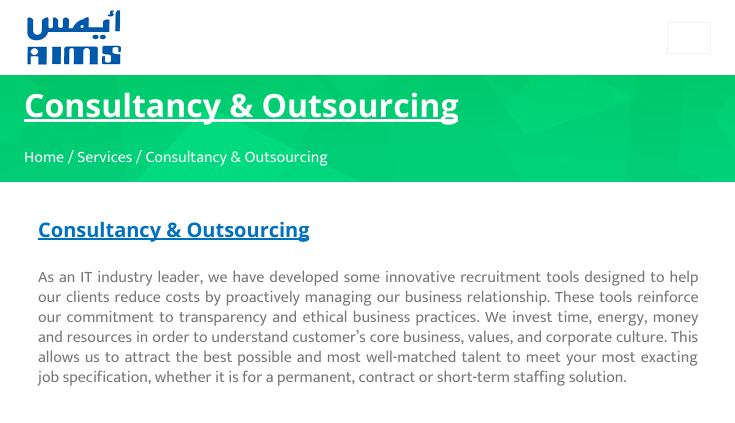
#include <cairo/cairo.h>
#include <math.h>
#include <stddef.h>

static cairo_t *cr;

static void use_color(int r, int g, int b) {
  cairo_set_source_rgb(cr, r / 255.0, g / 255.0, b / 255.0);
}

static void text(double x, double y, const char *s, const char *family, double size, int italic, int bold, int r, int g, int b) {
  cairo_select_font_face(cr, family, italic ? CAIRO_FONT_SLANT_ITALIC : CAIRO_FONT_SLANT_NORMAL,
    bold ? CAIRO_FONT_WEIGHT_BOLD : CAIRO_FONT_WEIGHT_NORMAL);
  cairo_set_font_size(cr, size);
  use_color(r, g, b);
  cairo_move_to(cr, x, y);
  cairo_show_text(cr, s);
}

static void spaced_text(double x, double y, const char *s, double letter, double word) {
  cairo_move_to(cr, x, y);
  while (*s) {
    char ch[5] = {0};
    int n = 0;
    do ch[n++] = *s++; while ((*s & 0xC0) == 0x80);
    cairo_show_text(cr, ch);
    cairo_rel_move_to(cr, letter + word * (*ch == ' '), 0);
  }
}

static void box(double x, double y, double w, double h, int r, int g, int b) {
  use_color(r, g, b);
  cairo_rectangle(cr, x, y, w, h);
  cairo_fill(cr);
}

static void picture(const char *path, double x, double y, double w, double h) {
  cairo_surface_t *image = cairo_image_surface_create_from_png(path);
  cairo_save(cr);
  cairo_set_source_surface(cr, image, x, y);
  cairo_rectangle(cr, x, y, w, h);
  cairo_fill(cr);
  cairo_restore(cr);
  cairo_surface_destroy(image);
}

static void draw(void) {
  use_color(255, 255, 255);
  cairo_paint(cr);
  picture("img_01.png", 27, 10, 94, 55);
  cairo_rectangle(cr, 667.5, 22.5, 43, 31);
  use_color(242, 242, 242);
  cairo_set_line_width(cr, 1);
  cairo_stroke(cr);
  picture("img_02.png", 0, 75, 735, 107);
  box(24, 119, 434, 3, 255, 255, 255);
  box(38, 238, 271, 2, 0, 112, 192);
  text(24, 117, "Consultancy & Outsourcing", "Open Sans", 32, 0, 1, 255, 255, 255);
  text(24, 162, "Home / Services / Consultancy & Outsourcing", "Mukta Vaani", 16, 0, 0, 255, 255, 255);
  text(38, 237, "Consultancy & Outsourcing", "Open Sans", 20, 0, 1, 0, 112, 192);
  cairo_select_font_face(cr, "Mukta Vaani", CAIRO_FONT_SLANT_NORMAL, CAIRO_FONT_WEIGHT_NORMAL);
  cairo_set_font_size(cr, 16);
  use_color(119, 119, 119);
  spaced_text(38, 282, "As an IT industry leader, we have developed some innovative recruitment tools designed to help", 0, 1.4);
  spaced_text(38, 302, "our clients reduce costs by proactively managing our business relationship. These tools reinforce", 0, 1.25);
  spaced_text(38, 322, "our commitment to transparency and ethical business practices. We invest time, energy, money", 0, 1.75);
  spaced_text(38, 342, "and resources in order to understand customer’s core business, values, and corporate culture. This", 0, 0.25);
  spaced_text(38, 362, "allows us to attract the best possible and most well-matched talent to meet your most exacting", 0, 1.5);
  text(38, 382, "job specification, whether it is for a permanent, contract or short-term staffing solution.", "Mukta Vaani", 16, 0, 0, 119, 119, 119);
}

int main(void) {
  cairo_surface_t *surface = cairo_image_surface_create(CAIRO_FORMAT_RGB24, 735, 423);
  cr = cairo_create(surface);
  cairo_font_options_t *options = cairo_font_options_create();
  cairo_font_options_set_hint_metrics(options, CAIRO_HINT_METRICS_OFF);
  cairo_font_options_set_hint_style(options, CAIRO_HINT_STYLE_NONE);
  cairo_set_font_options(cr, options);
  cairo_set_miter_limit(cr, 4);
  draw();
  cairo_surface_write_to_png(surface, "out.png");
  cairo_font_options_destroy(options);
  cairo_destroy(cr);
  cairo_surface_destroy(surface);
  return 0;
}
